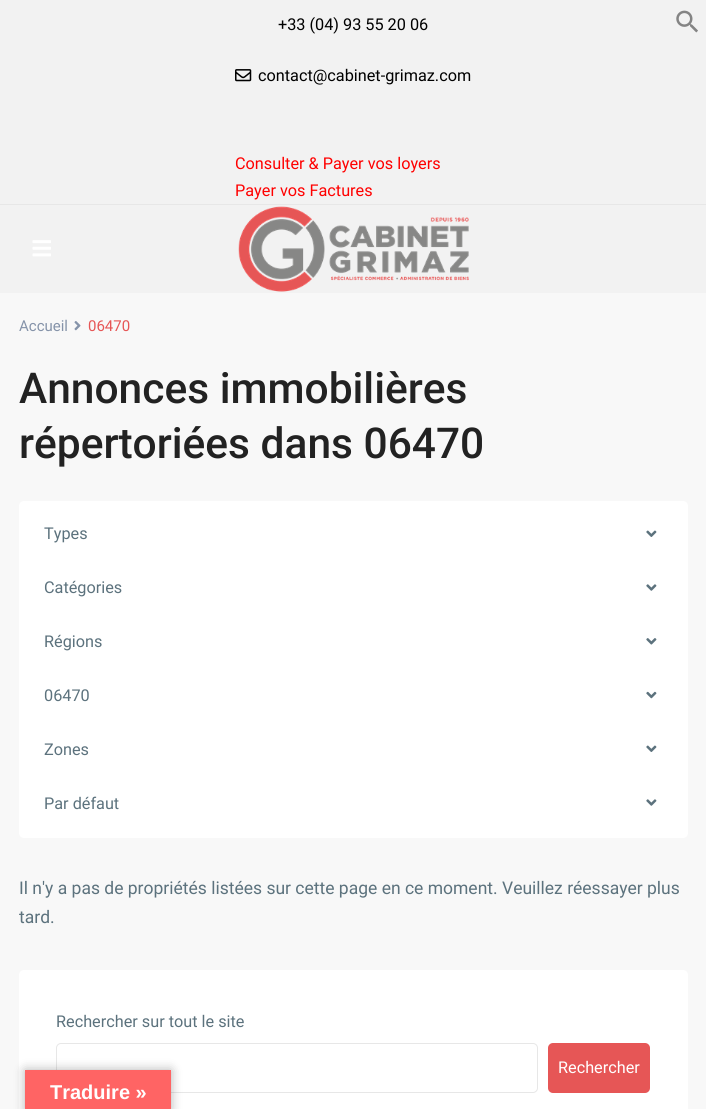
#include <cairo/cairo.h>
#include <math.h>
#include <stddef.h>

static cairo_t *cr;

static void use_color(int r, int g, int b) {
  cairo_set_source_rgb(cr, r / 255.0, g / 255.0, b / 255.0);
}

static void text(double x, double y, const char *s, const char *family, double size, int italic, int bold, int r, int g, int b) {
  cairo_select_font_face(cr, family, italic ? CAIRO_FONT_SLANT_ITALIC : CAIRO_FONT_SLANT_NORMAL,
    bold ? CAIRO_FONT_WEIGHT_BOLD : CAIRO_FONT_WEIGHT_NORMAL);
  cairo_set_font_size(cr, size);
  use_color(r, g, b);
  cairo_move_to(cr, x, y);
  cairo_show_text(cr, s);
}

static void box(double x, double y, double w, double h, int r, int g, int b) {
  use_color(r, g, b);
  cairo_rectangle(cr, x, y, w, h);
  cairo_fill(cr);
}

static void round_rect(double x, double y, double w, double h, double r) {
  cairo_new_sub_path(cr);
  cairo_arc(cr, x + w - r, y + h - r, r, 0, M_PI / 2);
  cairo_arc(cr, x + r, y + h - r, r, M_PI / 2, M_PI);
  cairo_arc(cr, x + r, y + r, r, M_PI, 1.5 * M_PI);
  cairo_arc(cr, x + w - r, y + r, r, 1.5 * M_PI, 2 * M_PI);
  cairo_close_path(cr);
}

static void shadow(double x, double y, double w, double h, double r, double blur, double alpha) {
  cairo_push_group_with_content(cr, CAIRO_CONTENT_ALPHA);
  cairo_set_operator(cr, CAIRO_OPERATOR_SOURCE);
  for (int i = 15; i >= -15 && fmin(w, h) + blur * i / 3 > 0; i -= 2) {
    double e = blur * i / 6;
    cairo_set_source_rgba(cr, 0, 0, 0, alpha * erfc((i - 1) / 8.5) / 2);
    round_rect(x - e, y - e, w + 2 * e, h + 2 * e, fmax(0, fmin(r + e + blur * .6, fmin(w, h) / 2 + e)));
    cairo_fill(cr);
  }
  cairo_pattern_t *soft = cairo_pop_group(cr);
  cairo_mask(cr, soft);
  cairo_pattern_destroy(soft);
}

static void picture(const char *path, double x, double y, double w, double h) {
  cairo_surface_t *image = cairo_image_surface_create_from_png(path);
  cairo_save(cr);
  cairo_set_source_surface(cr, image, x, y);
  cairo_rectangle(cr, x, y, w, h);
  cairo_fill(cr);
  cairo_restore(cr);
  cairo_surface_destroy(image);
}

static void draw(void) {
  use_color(248, 248, 248);
  cairo_paint(cr);
  box(0, 0, 706, 204, 242, 242, 242);
  box(0, 204, 706, 1, 231, 231, 231);
  picture("img_01.png", 235, 69, 17, 13);
  box(0, 205, 706, 88, 242, 242, 242);
  picture("img_02.png", 32, 240, 19, 17);
  picture("img_03.png", 238, 206, 231, 86);
  picture("img_04.png", 74, 321, 7, 10);
  use_color(255, 255, 255);
  round_rect(19, 501, 669, 337, 5);
  cairo_fill(cr);
  picture("img_05.png", 646, 530, 11, 7);
  picture("img_06.png", 646, 584, 11, 7);
  picture("img_07.png", 646, 638, 11, 7);
  picture("img_08.png", 646, 691, 11, 8);
  picture("img_05.png", 646, 745, 11, 7);
  picture("img_06.png", 646, 799, 11, 7);
  round_rect(19, 970, 669, 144, 5);
  cairo_fill(cr);
  round_rect(56.5, 1043.5, 481, 49, 4.5);
  use_color(231, 231, 231);
  cairo_set_line_width(cr, 1);
  cairo_stroke(cr);
  use_color(230, 86, 86);
  round_rect(548, 1043, 102, 50, 5);
  cairo_fill(cr);
  picture("img_09.png", 676, 10, 22, 23);
  use_color(0, 0, 0);
  shadow(25, 1070, 146, 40, 0, 5.5, 0.3);
  box(25, 1070, 146, 39, 255, 100, 100);
  text(278, 30, "+33 (04) 93 55 20 06", "Roboto", 16.25, 0, 0, 0, 0, 0);
  text(258, 81, "contact@cabinet-grimaz.com", "Roboto", 16.25, 0, 0, 0, 0, 0);
  text(235, 169, "Consulter & Payer vos loyers", "Roboto", 16.25, 0, 0, 255, 0, 0);
  text(235, 196, "Payer vos Factures", "Roboto", 16.25, 0, 0, 255, 0, 0);
  text(19, 331, "Accueil", "Roboto", 15, 0, 0, 133, 147, 169);
  text(88, 331, "06470", "Roboto", 15, 0, 0, 230, 86, 86);
  text(19, 403, "Annonces immobilières", "Roboto Medium", 42.5, 0, 0, 34, 34, 34);
  text(19, 458, "répertoriées dans 06470", "Roboto Medium", 42.5, 0, 0, 34, 34, 34);
  text(44, 539, "Types", "Roboto", 16.25, 0, 0, 92, 114, 125);
  text(44, 593, "Catégories", "Roboto", 16.25, 0, 0, 92, 114, 125);
  text(44, 647, "Régions", "Roboto", 16.25, 0, 0, 92, 114, 125);
  text(44, 701, "06470", "Roboto", 16.25, 0, 0, 92, 114, 125);
  text(44, 755, "Zones", "Roboto", 16.25, 0, 0, 92, 114, 125);
  text(44, 809, "Par défaut", "Roboto", 16.25, 0, 0, 92, 114, 125);
  text(19, 894, "Il n'y a pas de propriétés listées sur cette page en ce moment. Veuillez réessayer plus", "Roboto", 17.5, 0, 0, 92, 114, 125);
  text(19, 923, "tard.", "Roboto", 17.5, 0, 0, 92, 114, 125);
  text(56, 1027, "Rechercher sur tout le site", "Roboto", 16.25, 0, 0, 92, 114, 125);
  text(558, 1073, "Rechercher", "Roboto", 16.25, 0, 0, 255, 255, 255);
  text(50, 1099, "Traduire »", "Liberation Sans", 20, 0, 1, 255, 255, 255);
}

int main(void) {
  cairo_surface_t *surface = cairo_image_surface_create(CAIRO_FORMAT_RGB24, 706, 1109);
  cr = cairo_create(surface);
  cairo_font_options_t *options = cairo_font_options_create();
  cairo_font_options_set_hint_metrics(options, CAIRO_HINT_METRICS_OFF);
  cairo_font_options_set_hint_style(options, CAIRO_HINT_STYLE_NONE);
  cairo_set_font_options(cr, options);
  cairo_set_miter_limit(cr, 4);
  draw();
  cairo_surface_write_to_png(surface, "out.png");
  cairo_font_options_destroy(options);
  cairo_destroy(cr);
  cairo_surface_destroy(surface);
  return 0;
}
